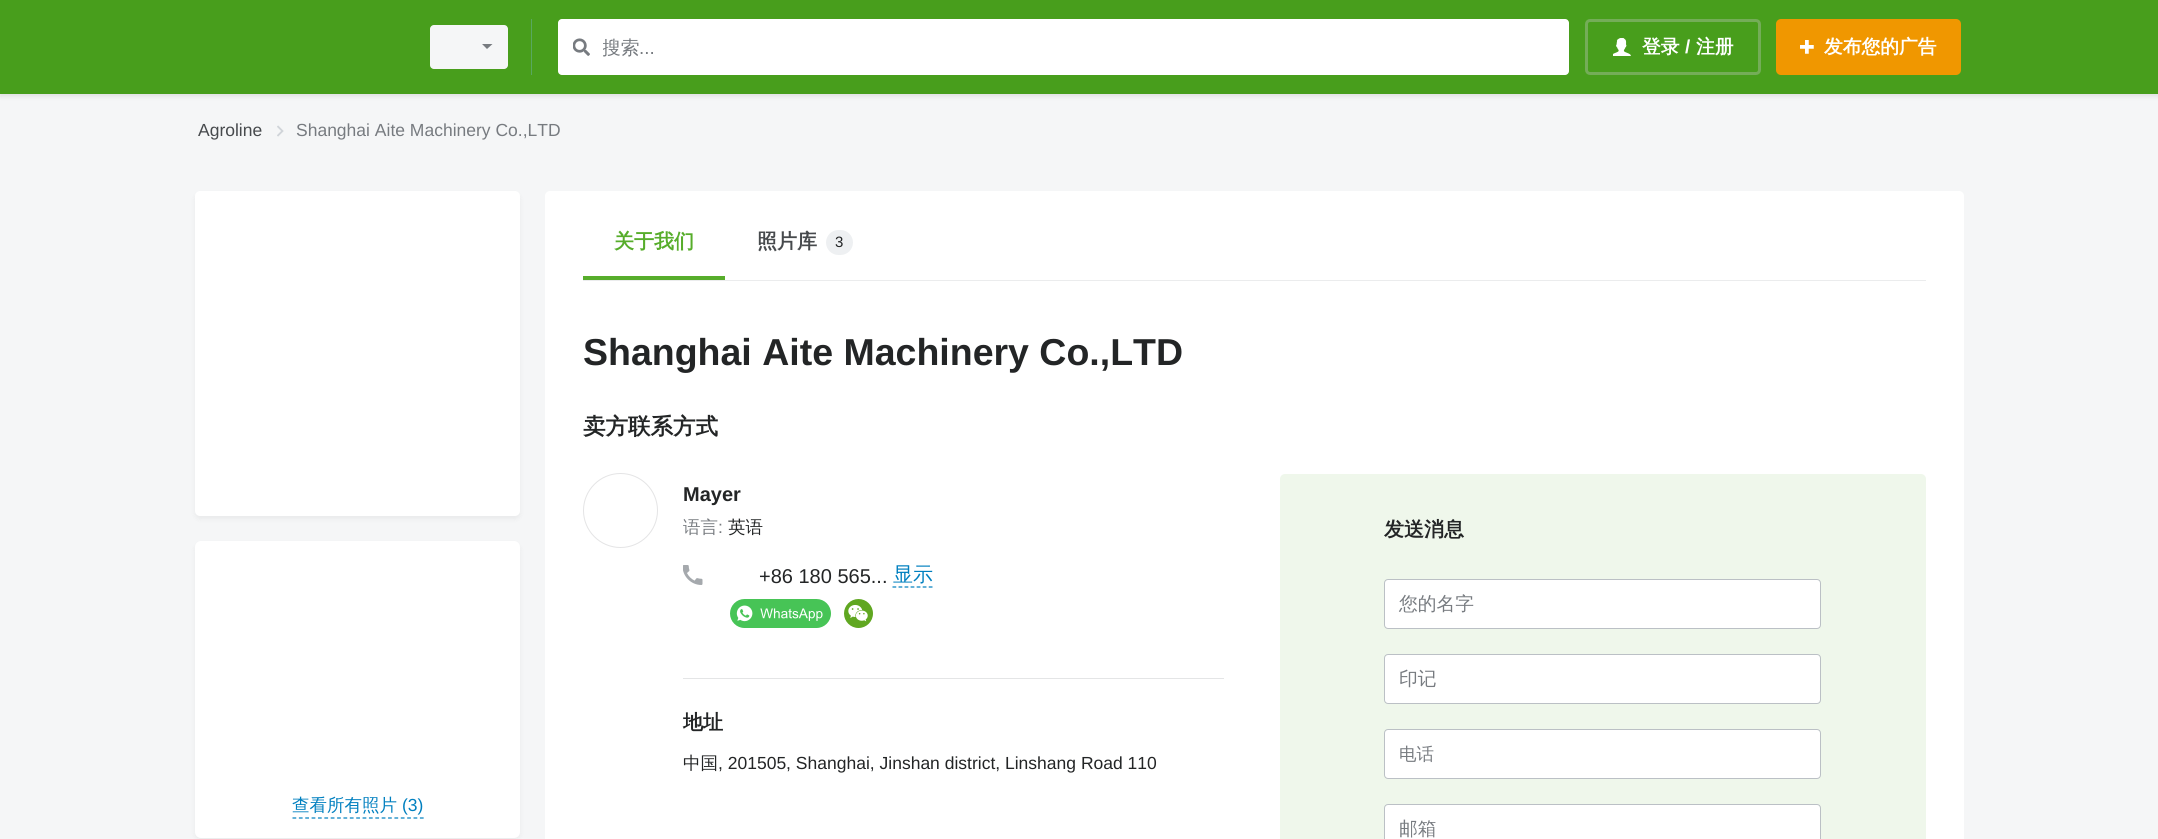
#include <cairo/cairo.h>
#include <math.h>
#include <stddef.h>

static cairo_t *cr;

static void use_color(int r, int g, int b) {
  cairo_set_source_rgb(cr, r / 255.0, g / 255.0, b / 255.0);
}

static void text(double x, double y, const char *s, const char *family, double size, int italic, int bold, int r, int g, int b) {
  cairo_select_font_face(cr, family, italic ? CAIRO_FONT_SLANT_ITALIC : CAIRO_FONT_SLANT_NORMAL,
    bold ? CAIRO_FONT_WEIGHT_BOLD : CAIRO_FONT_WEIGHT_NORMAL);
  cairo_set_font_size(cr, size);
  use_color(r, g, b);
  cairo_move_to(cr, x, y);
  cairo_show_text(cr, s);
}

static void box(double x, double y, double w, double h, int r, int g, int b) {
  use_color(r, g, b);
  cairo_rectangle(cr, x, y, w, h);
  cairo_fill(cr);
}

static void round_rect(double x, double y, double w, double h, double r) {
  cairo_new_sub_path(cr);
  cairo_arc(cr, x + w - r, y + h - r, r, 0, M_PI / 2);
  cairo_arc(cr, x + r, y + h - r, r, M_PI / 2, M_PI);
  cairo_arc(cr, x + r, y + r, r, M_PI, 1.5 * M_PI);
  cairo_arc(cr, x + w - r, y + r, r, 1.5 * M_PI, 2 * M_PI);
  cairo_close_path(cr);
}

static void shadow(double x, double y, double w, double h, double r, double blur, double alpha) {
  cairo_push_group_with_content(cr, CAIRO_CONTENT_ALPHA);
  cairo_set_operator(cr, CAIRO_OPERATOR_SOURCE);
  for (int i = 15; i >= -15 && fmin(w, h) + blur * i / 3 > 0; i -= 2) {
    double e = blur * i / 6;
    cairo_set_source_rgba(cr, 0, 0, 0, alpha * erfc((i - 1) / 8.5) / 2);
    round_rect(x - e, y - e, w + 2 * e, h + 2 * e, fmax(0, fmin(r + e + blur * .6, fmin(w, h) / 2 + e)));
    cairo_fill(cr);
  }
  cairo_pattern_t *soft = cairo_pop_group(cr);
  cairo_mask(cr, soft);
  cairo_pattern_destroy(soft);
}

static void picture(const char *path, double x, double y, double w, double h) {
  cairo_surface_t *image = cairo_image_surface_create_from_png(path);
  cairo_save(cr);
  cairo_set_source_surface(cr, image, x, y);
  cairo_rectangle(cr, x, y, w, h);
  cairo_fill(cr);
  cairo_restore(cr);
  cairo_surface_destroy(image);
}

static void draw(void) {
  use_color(245, 246, 247);
  cairo_paint(cr);
  use_color(0, 0, 0);
  shadow(0, 3, 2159, 93, 0, 2.5, 0.1);
  box(0, 0, 2158, 94, 72, 158, 28);
  use_color(245, 246, 247);
  round_rect(430, 25, 78, 44, 4);
  cairo_fill(cr);
  use_color(119, 123, 128);
  cairo_new_path(cr);
  cairo_move_to(cr, 482, 44);
  cairo_line_to(cr, 492.5, 44);
  cairo_line_to(cr, 487, 49);
  cairo_close_path(cr);
  cairo_fill(cr);
  box(531, 19, 1, 56, 89, 168, 96);
  use_color(255, 255, 255);
  round_rect(558, 19, 1011, 56, 4);
  cairo_fill(cr);
  picture("img_01.png", 573, 38, 17, 18);
  round_rect(1586.5, 20.5, 173, 53, 3.5);
  use_color(116, 173, 88);
  cairo_set_line_width(cr, 3);
  cairo_stroke(cr);
  picture("img_02.png", 1613, 38, 18, 18);
  use_color(240, 151, 0);
  round_rect(1776, 19, 185, 56, 5);
  cairo_fill(cr);
  picture("img_03.png", 1800, 40, 14, 14);
  picture("img_04.png", 277, 125, 7, 12);
  use_color(0, 0, 0);
  shadow(195, 194, 325, 325, 5, 2.5, 0.05);
  use_color(255, 255, 255);
  round_rect(195, 191, 325, 325, 5);
  cairo_fill(cr);
  use_color(0, 0, 0);
  shadow(195, 544, 325, 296, 6, 2.5, 0.05);
  use_color(255, 255, 255);
  round_rect(195, 541, 325, 297, 6);
  cairo_fill(cr);
  cairo_new_path(cr);
  cairo_move_to(cr, 292.5, 818);
  cairo_line_to(cr, 424, 818);
  use_color(0, 127, 191);
  cairo_set_line_width(cr, 1.2);
  cairo_set_dash(cr, (double[]){3.75, 2.62}, 2, 0);
  cairo_stroke(cr);
  use_color(255, 255, 255);
  round_rect(545, 191, 1419, 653, 5);
  cairo_fill(cr);
  box(583, 280, 1343, 1, 235, 236, 237);
  box(583, 276, 142, 4, 87, 173, 43);
  use_color(238, 240, 242);
  round_rect(826, 230, 27, 25, 12.5);
  cairo_fill(cr);
  cairo_arc(cr, 620.5, 510.5, 37, 0, 2 * M_PI);
  use_color(228, 228, 229);
  cairo_set_line_width(cr, 1);
  cairo_set_dash(cr, NULL, 0, 0);
  cairo_stroke(cr);
  picture("img_05.png", 683, 565, 20, 20);
  cairo_new_path(cr);
  cairo_move_to(cr, 892.5, 587);
  cairo_line_to(cr, 932.5, 587);
  use_color(0, 127, 191);
  cairo_set_line_width(cr, 1.2);
  cairo_set_dash(cr, (double[]){3.75, 2.29}, 2, 0);
  cairo_stroke(cr);
  picture("img_06.png", 730, 599, 101, 29);
  picture("img_07.png", 844, 599, 29, 29);
  box(683, 678, 541, 1, 228, 229, 230);
  use_color(239, 247, 235);
  round_rect(1280, 474, 646, 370, 5);
  cairo_fill(cr);
  use_color(255, 255, 255);
  round_rect(1384.5, 579.5, 436, 49, 3.5);
  cairo_fill_preserve(cr);
  use_color(187, 192, 197);
  cairo_set_line_width(cr, 1);
  cairo_set_dash(cr, NULL, 0, 0);
  cairo_stroke(cr);
  use_color(255, 255, 255);
  round_rect(1384.5, 654.5, 436, 49, 3.5);
  cairo_fill_preserve(cr);
  use_color(187, 192, 197);
  cairo_stroke(cr);
  use_color(255, 255, 255);
  round_rect(1384.5, 729.5, 436, 49, 3.5);
  cairo_fill_preserve(cr);
  use_color(187, 192, 197);
  cairo_stroke(cr);
  use_color(255, 255, 255);
  round_rect(1384.5, 804.5, 436, 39, 3.5);
  cairo_fill_preserve(cr);
  use_color(187, 192, 197);
  cairo_stroke(cr);
  cairo_save(cr);
  cairo_rectangle(cr, 603, 36, 953, 24);
  cairo_clip(cr);
  text(602, 54, "搜索", "WenQuanYi Zen Hei Medium", 18.75, 0, 0, 119, 123, 128);
  cairo_restore(cr);
  text(639, 54, "...", "Liberation Sans", 18.75, 0, 0, 119, 123, 128);
  text(1642, 53, "登录", "WenQuanYi Zen Hei", 18.75, 0, 1, 255, 255, 255);
  text(1685, 53, "/", "Liberation Sans", 18.75, 0, 1, 255, 255, 255);
  text(1696, 53, "注册", "WenQuanYi Zen Hei", 18.75, 0, 1, 255, 255, 255);
  text(1824, 53, "发布您的广告", "WenQuanYi Zen Hei", 18.75, 0, 1, 255, 255, 255);
  text(198, 136, "Agroline", "Liberation Sans", 17.5, 0, 0, 71, 74, 77);
  text(296, 136, "Shanghai Aite Machinery Co.,LTD", "Liberation Sans", 17.5, 0, 0, 119, 123, 128);
  text(292, 811, "查看所有照片", "WenQuanYi Zen Hei Medium", 17.5, 0, 0, 0, 127, 191);
  text(402, 811, "(3)", "Liberation Sans", 17.5, 0, 0, 0, 127, 191);
  text(614, 248, "关于我们", "WenQuanYi Zen Hei", 20, 0, 1, 87, 173, 43);
  text(757, 248, "照片库", "WenQuanYi Zen Hei", 20, 0, 1, 71, 74, 77);
  text(835, 247, "3", "Liberation Sans", 15, 0, 0, 35, 37, 38);
  text(583, 365, "Shanghai Aite Machinery Co.,LTD", "Liberation Sans", 37.5, 0, 1, 35, 37, 38);
  text(583, 434, "卖方联系方式", "WenQuanYi Zen Hei", 22.5, 0, 1, 35, 37, 38);
  text(683, 501, "Mayer", "Liberation Sans", 20, 0, 1, 35, 37, 38);
  text(683, 533, "语言", "WenQuanYi Zen Hei Medium", 17.5, 0, 0, 119, 123, 128);
  text(718, 533, ":", "Liberation Sans", 17.5, 0, 0, 119, 123, 128);
  text(728, 533, "英语", "WenQuanYi Zen Hei Medium", 17.5, 0, 0, 35, 37, 38);
  text(759, 583, "+86 180 565...", "Liberation Sans", 20, 0, 0, 35, 37, 38);
  text(893, 581, "显示", "WenQuanYi Zen Hei Medium", 20, 0, 0, 0, 127, 191);
  text(683, 729, "地址", "WenQuanYi Zen Hei", 20, 0, 1, 35, 37, 38);
  text(683, 769, "中国", "WenQuanYi Zen Hei Medium", 17.5, 0, 0, 35, 37, 38);
  text(718, 769, ", 201505, Shanghai, Jinshan district, Linshang Road 110", "Liberation Sans", 17.5, 0, 0, 35, 37, 38);
  text(1384, 536, "发送消息", "WenQuanYi Zen Hei", 20, 0, 1, 35, 37, 38);
  text(1399, 610, "您的名字", "WenQuanYi Zen Hei Medium", 18.75, 0, 0, 119, 123, 128);
  text(1399, 685, "印记", "WenQuanYi Zen Hei Medium", 18.75, 0, 0, 119, 123, 128);
  text(1399, 760, "电话", "WenQuanYi Zen Hei Medium", 17.5, 0, 0, 119, 123, 128);
  text(1399, 835, "邮箱", "WenQuanYi Zen Hei Medium", 18.75, 0, 0, 119, 123, 128);
}

int main(void) {
  cairo_surface_t *surface = cairo_image_surface_create(CAIRO_FORMAT_RGB24, 2158, 839);
  cr = cairo_create(surface);
  cairo_font_options_t *options = cairo_font_options_create();
  cairo_font_options_set_hint_metrics(options, CAIRO_HINT_METRICS_OFF);
  cairo_font_options_set_hint_style(options, CAIRO_HINT_STYLE_NONE);
  cairo_set_font_options(cr, options);
  cairo_set_miter_limit(cr, 4);
  draw();
  cairo_surface_write_to_png(surface, "out.png");
  cairo_font_options_destroy(options);
  cairo_destroy(cr);
  cairo_surface_destroy(surface);
  return 0;
}
